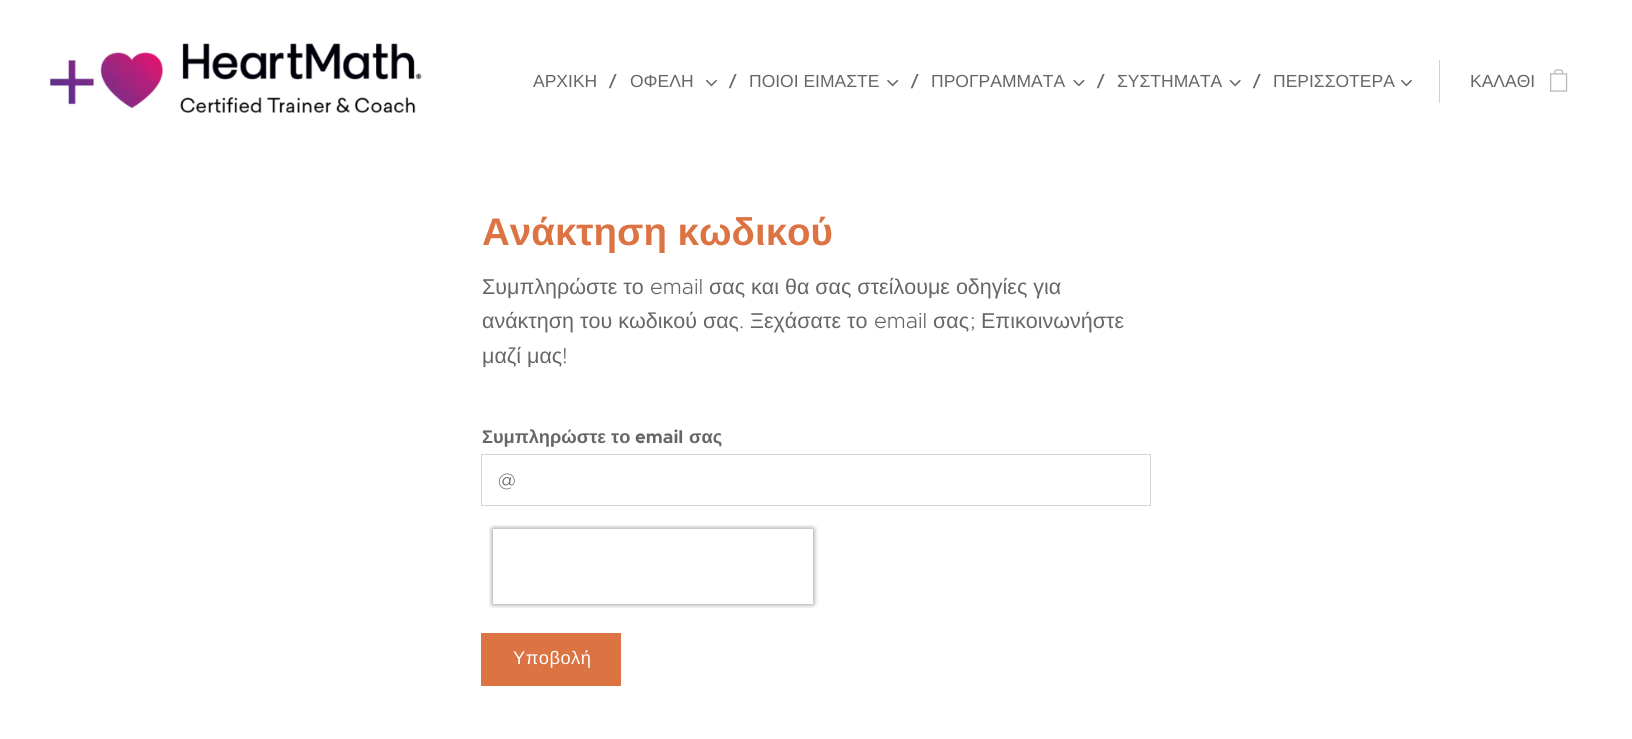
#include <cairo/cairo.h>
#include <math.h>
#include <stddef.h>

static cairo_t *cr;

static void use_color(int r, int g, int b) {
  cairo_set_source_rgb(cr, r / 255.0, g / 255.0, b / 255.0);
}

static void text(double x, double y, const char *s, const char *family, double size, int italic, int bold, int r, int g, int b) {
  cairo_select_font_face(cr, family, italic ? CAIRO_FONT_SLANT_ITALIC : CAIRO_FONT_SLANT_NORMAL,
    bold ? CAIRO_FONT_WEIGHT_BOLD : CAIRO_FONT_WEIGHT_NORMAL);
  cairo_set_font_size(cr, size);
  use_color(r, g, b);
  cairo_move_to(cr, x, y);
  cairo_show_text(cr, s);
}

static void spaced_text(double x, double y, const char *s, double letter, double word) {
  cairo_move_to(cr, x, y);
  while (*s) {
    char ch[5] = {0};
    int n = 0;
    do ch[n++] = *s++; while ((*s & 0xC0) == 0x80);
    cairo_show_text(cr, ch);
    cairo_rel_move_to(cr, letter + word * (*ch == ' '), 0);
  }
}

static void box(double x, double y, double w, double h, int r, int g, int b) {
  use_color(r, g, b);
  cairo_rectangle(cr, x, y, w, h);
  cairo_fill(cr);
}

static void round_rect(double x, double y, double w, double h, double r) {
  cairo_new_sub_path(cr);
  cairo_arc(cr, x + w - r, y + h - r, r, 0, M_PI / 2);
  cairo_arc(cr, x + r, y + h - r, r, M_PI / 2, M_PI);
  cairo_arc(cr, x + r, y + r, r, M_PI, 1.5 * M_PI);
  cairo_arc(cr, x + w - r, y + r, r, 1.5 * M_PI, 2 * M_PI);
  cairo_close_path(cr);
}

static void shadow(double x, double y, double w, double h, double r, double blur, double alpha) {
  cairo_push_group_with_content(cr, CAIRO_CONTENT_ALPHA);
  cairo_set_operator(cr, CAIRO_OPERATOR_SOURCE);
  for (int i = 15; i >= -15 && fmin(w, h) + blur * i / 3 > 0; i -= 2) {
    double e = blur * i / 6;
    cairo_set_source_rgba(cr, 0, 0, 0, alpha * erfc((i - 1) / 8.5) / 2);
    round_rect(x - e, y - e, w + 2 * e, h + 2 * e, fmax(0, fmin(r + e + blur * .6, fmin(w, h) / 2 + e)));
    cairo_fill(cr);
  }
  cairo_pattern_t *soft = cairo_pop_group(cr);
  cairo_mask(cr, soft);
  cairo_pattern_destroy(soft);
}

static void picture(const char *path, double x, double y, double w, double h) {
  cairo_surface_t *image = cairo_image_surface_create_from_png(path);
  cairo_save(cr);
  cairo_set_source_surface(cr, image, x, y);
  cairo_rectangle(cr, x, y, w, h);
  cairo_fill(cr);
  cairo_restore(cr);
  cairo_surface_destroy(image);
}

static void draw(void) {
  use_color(255, 255, 255);
  cairo_paint(cr);
  picture("img_01.png", 50, 43, 372, 70);
  picture("img_02.png", 705, 79, 12, 8);
  picture("img_03.png", 887, 79, 12, 8);
  picture("img_04.png", 1073, 79, 12, 8);
  picture("img_05.png", 1229, 79, 12, 8);
  picture("img_02.png", 1400, 79, 12, 8);
  box(1439, 60, 1, 43, 209, 209, 209);
  picture("img_06.png", 1550, 69, 18, 23);
  cairo_rectangle(cr, 481.5, 454.5, 669, 51);
  use_color(212, 212, 212);
  cairo_set_line_width(cr, 1);
  cairo_stroke(cr);
  cairo_save(cr);
  cairo_rectangle(cr, 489, 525, 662, 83);
  cairo_clip(cr);
  cairo_set_fill_rule(cr, CAIRO_FILL_RULE_EVEN_ODD);
  cairo_new_path(cr);
  cairo_move_to(cr, 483, 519);
  cairo_line_to(cr, 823, 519);
  cairo_line_to(cr, 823, 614);
  cairo_line_to(cr, 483, 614);
  cairo_close_path(cr);
  cairo_move_to(cr, 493, 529);
  cairo_line_to(cr, 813, 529);
  cairo_line_to(cr, 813, 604);
  cairo_line_to(cr, 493, 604);
  cairo_close_path(cr);
  cairo_clip(cr);
  use_color(128, 128, 128);
  shadow(493, 529, 320, 75, 0, 3, 1);
  cairo_restore(cr);
  box(481, 633, 140, 53, 219, 115, 67);
  text(533, 87, "ΑΡΧΙΚΗ", "Liberation Sans", 17.5, 0, 0, 102, 102, 102);
  text(609, 87, "/", "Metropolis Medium", 17.5, 0, 0, 102, 102, 102);
  text(630, 87, "ΟΦΕΛΗ", "Liberation Sans", 17.5, 0, 0, 102, 102, 102);
  text(729, 87, "/", "Metropolis Medium", 17.5, 0, 0, 102, 102, 102);
  text(749, 87, "ΠΟΙΟΙ ΕΙΜΑΣΤΕ", "Liberation Sans", 17.5, 0, 0, 102, 102, 102);
  text(911, 87, "/", "Metropolis Medium", 17.5, 0, 0, 102, 102, 102);
  text(931, 87, "ΠΡΟΓΡΑΜΜΑΤΑ", "Liberation Sans", 17.5, 0, 0, 102, 102, 102);
  text(1097, 87, "/", "Metropolis Medium", 17.5, 0, 0, 102, 102, 102);
  text(1117, 87, "ΣΥΣΤΗΜΑΤΑ", "Liberation Sans", 17.5, 0, 0, 102, 102, 102);
  text(1253, 87, "/", "Metropolis Medium", 17.5, 0, 0, 102, 102, 102);
  text(1273, 87, "ΠΕΡΙΣΣΟΤΕΡΑ", "Liberation Sans", 17.5, 0, 0, 102, 102, 102);
  text(1470, 87, "ΚΑΛΑΘΙ", "Liberation Sans", 17.5, 0, 0, 102, 102, 102);
  text(482, 245, "Ανάκτηση κωδικού", "Liberation Sans", 38.5, 0, 1, 219, 115, 67);
  text(482, 294, "Συμπληρώστε το", "Liberation Sans", 21.5, 0, 0, 102, 102, 102);
  text(650, 294, "email", "Metropolis Light", 21.5, 0, 0, 102, 102, 102);
  text(709, 294, "σας και θα σας στείλουμε οδηγίες για", "Liberation Sans", 21.5, 0, 0, 102, 102, 102);
  text(482, 328, "ανάκτηση του κωδικού σας", "Liberation Sans", 21.5, 0, 0, 102, 102, 102);
  text(739, 328, ".", "Metropolis Light", 21.5, 0, 0, 102, 102, 102);
  text(750, 328, "Ξεχάσατε το", "Liberation Sans", 21.5, 0, 0, 102, 102, 102);
  text(874, 328, "email", "Metropolis Light", 21.5, 0, 0, 102, 102, 102);
  text(933, 328, "σας", "Liberation Sans", 21.5, 0, 0, 102, 102, 102);
  text(970, 328, ";", "Metropolis Light", 21.5, 0, 0, 102, 102, 102);
  text(981, 328, "Επικοινωνήστε", "Liberation Sans", 21.5, 0, 0, 102, 102, 102);
  text(482, 363, "μαζί μας", "Liberation Sans", 21.5, 0, 0, 102, 102, 102);
  text(562, 363, "!", "Metropolis Light", 21.5, 0, 0, 102, 102, 102);
  text(482, 443, "Συμπληρώστε το", "Liberation Sans", 18.25, 0, 1, 102, 102, 102);
  text(635, 443, "email", "Metropolis", 18.25, 0, 1, 102, 102, 102);
  text(689, 443, "σας", "Liberation Sans", 18.25, 0, 1, 102, 102, 102);
  text(498, 487, "@", "Metropolis Light", 20, 0, 0, 102, 102, 102);
  cairo_select_font_face(cr, "Liberation Sans", CAIRO_FONT_SLANT_NORMAL, CAIRO_FONT_WEIGHT_NORMAL);
  cairo_set_font_size(cr, 18.25);
  use_color(255, 255, 255);
  spaced_text(513, 664, "Υποβολή", 0.5, 0);
}

int main(void) {
  cairo_surface_t *surface = cairo_image_surface_create(CAIRO_FORMAT_RGB24, 1632, 739);
  cr = cairo_create(surface);
  cairo_font_options_t *options = cairo_font_options_create();
  cairo_font_options_set_hint_metrics(options, CAIRO_HINT_METRICS_OFF);
  cairo_font_options_set_hint_style(options, CAIRO_HINT_STYLE_NONE);
  cairo_set_font_options(cr, options);
  cairo_set_miter_limit(cr, 4);
  draw();
  cairo_surface_write_to_png(surface, "out.png");
  cairo_font_options_destroy(options);
  cairo_destroy(cr);
  cairo_surface_destroy(surface);
  return 0;
}
